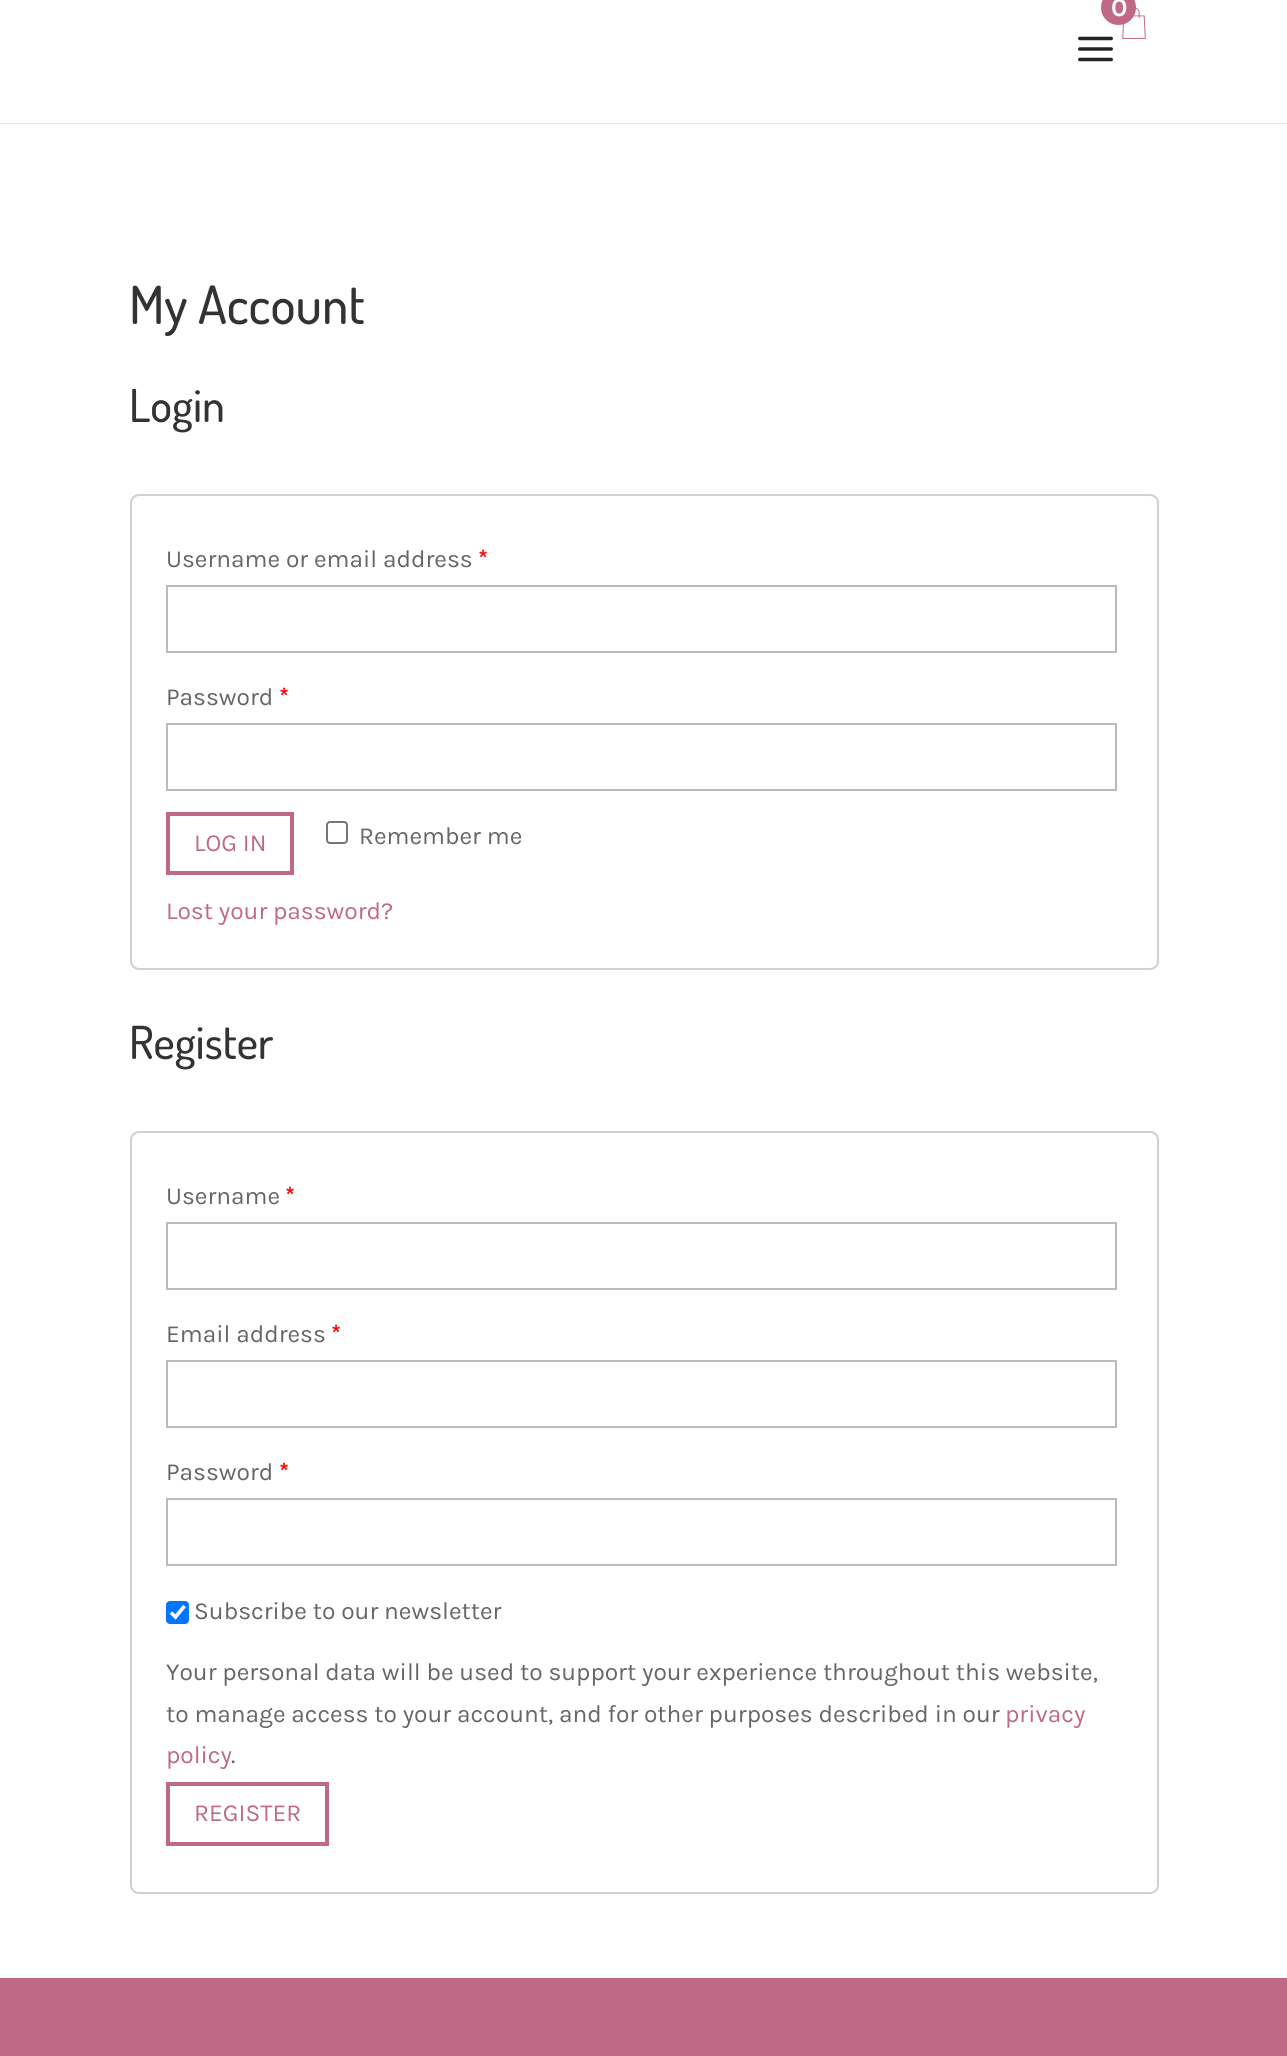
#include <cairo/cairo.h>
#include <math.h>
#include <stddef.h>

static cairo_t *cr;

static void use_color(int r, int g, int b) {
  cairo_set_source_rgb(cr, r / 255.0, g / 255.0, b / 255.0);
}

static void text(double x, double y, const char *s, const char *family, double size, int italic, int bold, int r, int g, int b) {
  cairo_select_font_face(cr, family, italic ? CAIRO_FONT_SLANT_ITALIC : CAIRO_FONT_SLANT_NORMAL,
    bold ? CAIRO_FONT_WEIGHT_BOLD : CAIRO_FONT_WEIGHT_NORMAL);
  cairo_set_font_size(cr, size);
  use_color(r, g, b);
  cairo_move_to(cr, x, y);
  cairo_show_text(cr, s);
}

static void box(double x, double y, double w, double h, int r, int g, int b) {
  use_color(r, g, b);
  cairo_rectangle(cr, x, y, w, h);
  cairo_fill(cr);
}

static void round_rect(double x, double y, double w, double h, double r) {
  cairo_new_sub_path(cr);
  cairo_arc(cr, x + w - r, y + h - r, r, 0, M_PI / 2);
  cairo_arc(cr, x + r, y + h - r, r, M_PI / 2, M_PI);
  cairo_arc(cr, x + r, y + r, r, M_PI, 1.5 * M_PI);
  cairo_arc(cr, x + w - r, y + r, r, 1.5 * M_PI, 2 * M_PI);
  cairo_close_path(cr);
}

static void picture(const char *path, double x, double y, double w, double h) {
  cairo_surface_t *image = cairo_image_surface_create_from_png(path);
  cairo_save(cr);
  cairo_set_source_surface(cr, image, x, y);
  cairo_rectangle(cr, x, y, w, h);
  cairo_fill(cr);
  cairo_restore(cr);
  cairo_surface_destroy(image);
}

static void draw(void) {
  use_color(255, 255, 255);
  cairo_paint(cr);
  box(0, 123, 1287, 1, 230, 230, 230);
  picture("img_01.png", 1122, 7, 24, 32);
  use_color(192, 105, 134);
  cairo_arc(cr, 1118.5, 7.5, 17.5, 0, 2 * M_PI);
  cairo_fill(cr);
  picture("img_02.png", 1078, 36, 35, 26);
  round_rect(131, 495, 1027, 474, 8);
  use_color(211, 206, 210);
  cairo_stroke(cr);
  cairo_rectangle(cr, 167, 586, 949, 66);
  use_color(187, 187, 187);
  cairo_stroke(cr);
  cairo_rectangle(cr, 167, 724, 949, 66);
  cairo_stroke(cr);
  cairo_rectangle(cr, 168, 814, 124, 59);
  use_color(192, 105, 134);
  cairo_set_line_width(cr, 4);
  cairo_stroke(cr);
  round_rect(327, 822, 20, 21, 3);
  use_color(118, 118, 118);
  cairo_set_line_width(cr, 2);
  cairo_stroke(cr);
  round_rect(131, 1132, 1027, 761, 8);
  use_color(211, 206, 210);
  cairo_stroke(cr);
  cairo_rectangle(cr, 167, 1223, 949, 66);
  use_color(187, 187, 187);
  cairo_stroke(cr);
  cairo_rectangle(cr, 167, 1361, 949, 66);
  cairo_stroke(cr);
  cairo_rectangle(cr, 167, 1499, 949, 66);
  cairo_stroke(cr);
  use_color(0, 117, 255);
  round_rect(166, 1601, 23, 23, 4);
  cairo_fill(cr);
  cairo_new_path(cr);
  cairo_move_to(cr, 171, 1612.5);
  cairo_line_to(cr, 175.5, 1617);
  cairo_line_to(cr, 184.5, 1606);
  use_color(255, 255, 255);
  cairo_set_line_width(cr, 3.6);
  cairo_stroke(cr);
  cairo_rectangle(cr, 168, 1784, 159, 60);
  use_color(192, 105, 134);
  cairo_set_line_width(cr, 4);
  cairo_stroke(cr);
  box(0, 1978, 1287, 78, 192, 105, 134);
  text(1111, 16, "0", "Karla", 26, 0, 1, 255, 255, 255);
  text(129, 324, "My Account", "Dosis Medium", 52.5, 0, 0, 51, 51, 51);
  text(129, 422, "Login", "Dosis Medium", 45.5, 0, 0, 51, 51, 51);
  text(166, 567, "Username or email address", "Karla", 24.5, 0, 0, 102, 102, 102);
  text(478, 567, "*", "Karla", 24.5, 0, 1, 255, 0, 0);
  text(166, 705, "Password", "Karla", 24.5, 0, 0, 102, 102, 102);
  text(279, 705, "*", "Karla", 24.5, 0, 1, 255, 0, 0);
  text(194, 851, "LOG IN", "Karla", 24.5, 0, 0, 191, 105, 134);
  text(359, 844, "Remember me", "Karla", 24.5, 0, 0, 102, 102, 102);
  text(166, 919, "Lost your password?", "Karla", 24.5, 0, 0, 191, 105, 134);
  text(129, 1059, "Register", "Dosis Medium", 45.5, 0, 0, 51, 51, 51);
  text(166, 1204, "Username", "Karla", 24.5, 0, 0, 102, 102, 102);
  text(285, 1204, "*", "Karla", 24.5, 0, 1, 255, 0, 0);
  text(166, 1342, "Email address", "Karla", 24.5, 0, 0, 102, 102, 102);
  text(331, 1342, "*", "Karla", 24.5, 0, 1, 255, 0, 0);
  text(166, 1480, "Password", "Karla", 24.5, 0, 0, 102, 102, 102);
  text(279, 1480, "*", "Karla", 24.5, 0, 1, 255, 0, 0);
  text(194, 1619, "Subscribe to our newsletter", "Karla", 24.5, 0, 0, 102, 102, 102);
  text(166, 1680, "Your personal data will be used to support your experience throughout this website,", "Karla", 24.5, 0, 0, 102, 102, 102);
  text(166, 1722, "to manage access to your account, and for other purposes described in our", "Karla", 24.5, 0, 0, 102, 102, 102);
  text(1005, 1722, "privacy", "Karla", 24.5, 0, 0, 191, 105, 134);
  text(166, 1763, "policy", "Karla", 24.5, 0, 0, 191, 105, 134);
  text(231, 1763, ".", "Karla", 24.5, 0, 0, 102, 102, 102);
  text(194, 1821, "REGISTER", "Karla", 24.5, 0, 0, 191, 105, 134);
}

int main(void) {
  cairo_surface_t *surface = cairo_image_surface_create(CAIRO_FORMAT_RGB24, 1287, 2056);
  cr = cairo_create(surface);
  cairo_font_options_t *options = cairo_font_options_create();
  cairo_font_options_set_hint_metrics(options, CAIRO_HINT_METRICS_OFF);
  cairo_font_options_set_hint_style(options, CAIRO_HINT_STYLE_NONE);
  cairo_set_font_options(cr, options);
  cairo_set_miter_limit(cr, 4);
  draw();
  cairo_surface_write_to_png(surface, "out.png");
  cairo_font_options_destroy(options);
  cairo_destroy(cr);
  cairo_surface_destroy(surface);
  return 0;
}
